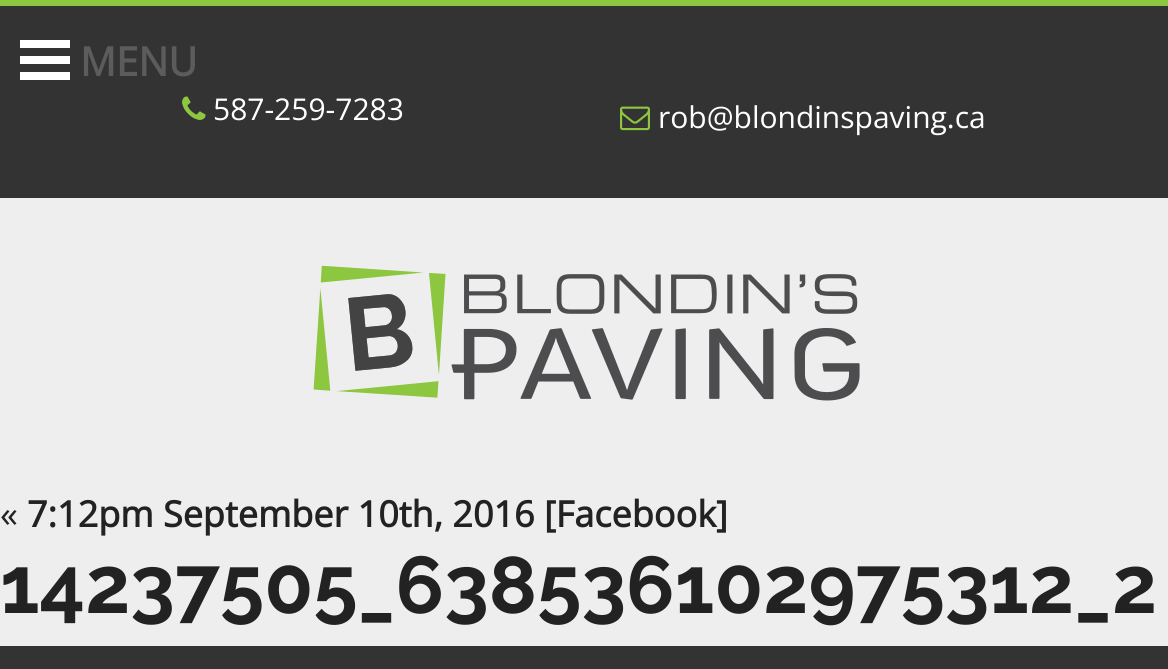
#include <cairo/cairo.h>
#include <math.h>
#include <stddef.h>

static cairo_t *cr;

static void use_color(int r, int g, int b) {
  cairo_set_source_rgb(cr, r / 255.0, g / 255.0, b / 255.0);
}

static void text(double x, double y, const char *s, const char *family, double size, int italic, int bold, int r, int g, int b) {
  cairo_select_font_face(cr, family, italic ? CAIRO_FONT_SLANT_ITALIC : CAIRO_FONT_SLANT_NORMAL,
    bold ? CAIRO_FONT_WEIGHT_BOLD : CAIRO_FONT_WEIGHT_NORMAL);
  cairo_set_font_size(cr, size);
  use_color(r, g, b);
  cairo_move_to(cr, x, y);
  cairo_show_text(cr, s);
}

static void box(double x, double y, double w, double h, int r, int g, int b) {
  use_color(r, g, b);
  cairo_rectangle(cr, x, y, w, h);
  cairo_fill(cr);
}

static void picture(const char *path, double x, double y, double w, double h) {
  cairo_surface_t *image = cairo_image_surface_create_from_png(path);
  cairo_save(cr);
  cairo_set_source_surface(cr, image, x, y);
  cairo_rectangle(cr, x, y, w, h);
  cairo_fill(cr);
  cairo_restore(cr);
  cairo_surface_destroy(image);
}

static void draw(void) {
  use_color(238, 238, 238);
  cairo_paint(cr);
  box(0, 6, 1168, 192, 51, 51, 51);
  box(20, 56, 50, 8, 255, 255, 255);
  box(20, 40, 50, 8, 255, 255, 255);
  box(20, 72, 50, 8, 255, 255, 255);
  box(0, 0, 1168, 6, 141, 198, 63);
  picture("img_01.png", 182, 96, 24, 24);
  picture("img_02.png", 620, 106, 30, 25);
  picture("img_03.png", 313, 265, 547, 136);
  box(0, 646, 1168, 23, 51, 51, 51);
  text(80, 76, "MENU", "Open Sans", 40, 0, 1, 92, 92, 92);
  text(213, 120, "587-259-7283", "Open Sans", 30, 0, 0, 255, 255, 255);
  text(658, 128, "rob@blondinspaving.ca", "Open Sans", 30, 0, 0, 255, 255, 255);
  text(0, 527, "«", "Open Sans", 36, 0, 0, 34, 34, 34);
  text(27, 527, "7:12pm September 10th, 2016 [Facebook]", "Open Sans", 36, 0, 1, 34, 34, 34);
  text(0, 613, "14237505_638536102975312_2", "Raleway", 80, 0, 1, 34, 34, 34);
}

int main(void) {
  cairo_surface_t *surface = cairo_image_surface_create(CAIRO_FORMAT_RGB24, 1168, 669);
  cr = cairo_create(surface);
  cairo_font_options_t *options = cairo_font_options_create();
  cairo_font_options_set_hint_metrics(options, CAIRO_HINT_METRICS_OFF);
  cairo_font_options_set_hint_style(options, CAIRO_HINT_STYLE_NONE);
  cairo_set_font_options(cr, options);
  cairo_set_miter_limit(cr, 4);
  draw();
  cairo_surface_write_to_png(surface, "out.png");
  cairo_font_options_destroy(options);
  cairo_destroy(cr);
  cairo_surface_destroy(surface);
  return 0;
}
